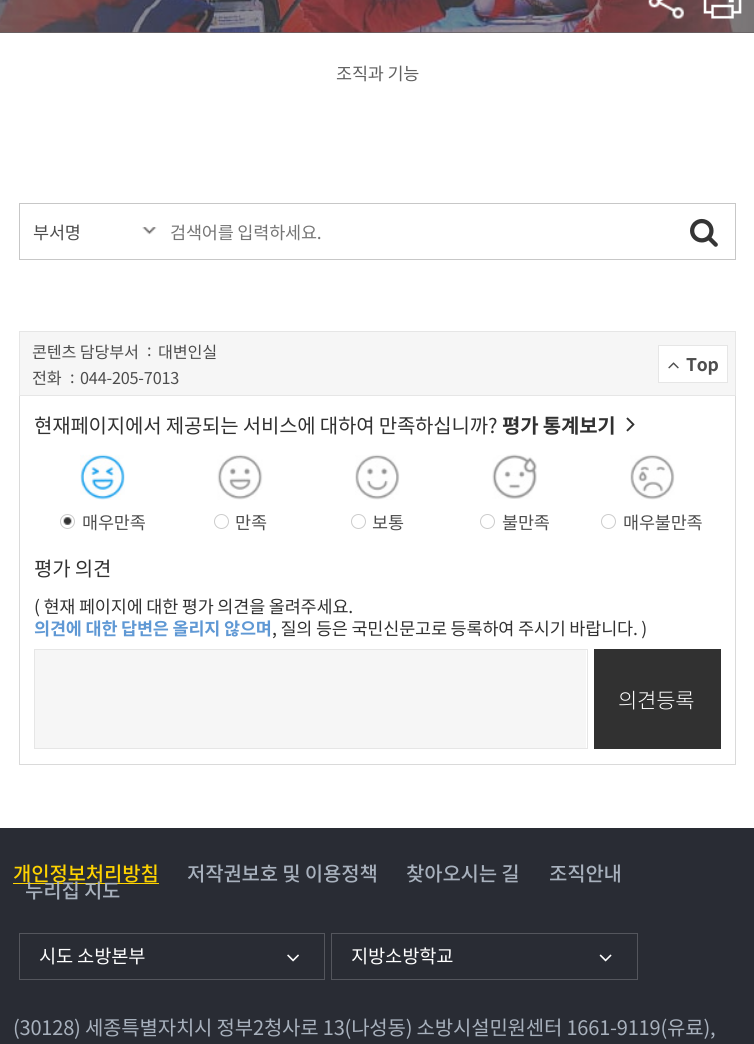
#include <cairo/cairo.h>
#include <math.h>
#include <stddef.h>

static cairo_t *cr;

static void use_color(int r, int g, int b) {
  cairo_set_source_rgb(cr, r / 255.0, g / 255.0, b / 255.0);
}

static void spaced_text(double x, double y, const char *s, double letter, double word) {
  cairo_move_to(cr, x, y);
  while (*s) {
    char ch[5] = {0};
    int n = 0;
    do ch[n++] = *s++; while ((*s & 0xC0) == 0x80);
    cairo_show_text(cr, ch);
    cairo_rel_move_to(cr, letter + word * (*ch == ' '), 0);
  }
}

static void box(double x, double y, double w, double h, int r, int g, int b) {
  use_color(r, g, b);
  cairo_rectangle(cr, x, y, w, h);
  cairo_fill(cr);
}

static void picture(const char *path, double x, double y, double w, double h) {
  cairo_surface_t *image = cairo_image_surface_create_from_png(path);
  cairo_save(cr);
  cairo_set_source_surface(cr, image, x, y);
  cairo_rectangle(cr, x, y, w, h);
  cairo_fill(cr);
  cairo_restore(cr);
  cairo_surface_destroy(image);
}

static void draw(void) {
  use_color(255, 255, 255);
  cairo_paint(cr);
  box(0, 32, 754, 1, 101, 97, 99);
  picture("img_01.png", 0, 0, 754, 33);
  picture("img_02.png", 648, 0, 36, 19);
  picture("img_03.png", 703, 0, 39, 19);
  cairo_rectangle(cr, 19.5, 203.5, 716, 56);
  use_color(199, 199, 199);
  cairo_set_line_width(cr, 1);
  cairo_stroke(cr);
  picture("img_04.png", 142, 227, 15, 8);
  picture("img_05.png", 690, 218, 28, 29);
  use_color(246, 246, 246);
  cairo_rectangle(cr, 19.5, 331.5, 716, 64);
  cairo_fill_preserve(cr);
  use_color(230, 230, 230);
  cairo_stroke(cr);
  use_color(255, 255, 255);
  cairo_rectangle(cr, 658.5, 345.5, 69, 37);
  cairo_fill_preserve(cr);
  use_color(230, 230, 230);
  cairo_stroke(cr);
  picture("img_06.png", 668, 362, 11, 7);
  box(735, 396, 1, 369, 218, 218, 218);
  box(19, 764, 717, 1, 218, 218, 218);
  box(19, 396, 1, 369, 218, 218, 218);
  picture("img_07.png", 626, 417, 9, 15);
  picture("img_08.png", 80, 454, 45, 46);
  picture("img_09.png", 63, 517, 9, 8);
  cairo_arc(cr, 67.5, 521.5, 7, 0, 2 * M_PI);
  use_color(204, 204, 204);
  cairo_stroke(cr);
  picture("img_10.png", 217, 454, 46, 46);
  cairo_arc(cr, 221.5, 521.5, 7, 0, 2 * M_PI);
  cairo_stroke(cr);
  picture("img_11.png", 355, 454, 45, 46);
  cairo_arc(cr, 358.5, 521.5, 7, 0, 2 * M_PI);
  cairo_stroke(cr);
  picture("img_12.png", 492, 454, 45, 45);
  cairo_arc(cr, 487.5, 521.5, 7, 0, 2 * M_PI);
  cairo_stroke(cr);
  picture("img_13.png", 630, 454, 45, 46);
  cairo_arc(cr, 608.5, 521.5, 7, 0, 2 * M_PI);
  cairo_stroke(cr);
  box(35, 650, 551, 98, 246, 246, 246);
  cairo_rectangle(cr, 34.5, 649.5, 553, 99);
  use_color(230, 230, 230);
  cairo_stroke(cr);
  box(594, 649, 127, 100, 49, 49, 49);
  box(0, 828, 754, 216, 41, 44, 52);
  box(13, 883, 146, 1, 254, 211, 0);
  cairo_rectangle(cr, 19.5, 933.5, 305, 46);
  use_color(84, 86, 93);
  cairo_stroke(cr);
  picture("img_14.png", 287, 954, 12, 8);
  cairo_rectangle(cr, 331.5, 933.5, 306, 46);
  cairo_stroke(cr);
  picture("img_15.png", 599, 954, 13, 8);
  cairo_select_font_face(cr, "Noto Sans KR", CAIRO_FONT_SLANT_NORMAL, CAIRO_FONT_WEIGHT_NORMAL);
  cairo_set_font_size(cr, 17.5);
  use_color(96, 96, 96);
  spaced_text(336, 80, "조직과 기능", -0.2, 0);
  use_color(77, 77, 77);
  spaced_text(33, 239, "부서명", -0.2, 0);
  use_color(117, 117, 117);
  spaced_text(170, 239, "검색어를 입력하세요.", -0.2, 0);
  cairo_set_font_size(cr, 16.25);
  use_color(77, 77, 77);
  spaced_text(32, 358, "콘텐츠 담당부서", -0.2, 0);
  spaced_text(147, 356, ":", -0.2, 0);
  spaced_text(158, 358, "대변인실", -0.2, 0);
  spaced_text(32, 384, "전화", -0.2, 0);
  spaced_text(70, 383, ":", -0.2, 0);
  spaced_text(80, 384, "044-205-7013", -0.2, 0);
  cairo_select_font_face(cr, "Noto Sans KR", CAIRO_FONT_SLANT_NORMAL, CAIRO_FONT_WEIGHT_BOLD);
  cairo_set_font_size(cr, 17.5);
  spaced_text(686, 371, "Top", -0.2, 0);
  cairo_select_font_face(cr, "Noto Sans KR", CAIRO_FONT_SLANT_NORMAL, CAIRO_FONT_WEIGHT_NORMAL);
  cairo_set_font_size(cr, 20);
  use_color(49, 49, 49);
  spaced_text(34, 433, "현재페이지에서 제공되는 서비스에 대하여 만족하십니까?", -0.2, 0);
  cairo_select_font_face(cr, "Noto Sans KR", CAIRO_FONT_SLANT_NORMAL, CAIRO_FONT_WEIGHT_BOLD);
  spaced_text(502, 433, "평가 통계보기", -0.2, 0);
  cairo_select_font_face(cr, "Noto Sans KR", CAIRO_FONT_SLANT_NORMAL, CAIRO_FONT_WEIGHT_NORMAL);
  cairo_set_font_size(cr, 17.5);
  use_color(77, 77, 77);
  spaced_text(82, 529, "매우만족", -0.2, 0);
  spaced_text(235, 529, "만족", -0.2, 0);
  spaced_text(372, 529, "보통", -0.2, 0);
  spaced_text(502, 529, "불만족", -0.2, 0);
  spaced_text(623, 529, "매우불만족", -0.2, 0);
  cairo_set_font_size(cr, 20);
  use_color(49, 49, 49);
  spaced_text(34, 576, "평가 의견", -0.2, 0);
  cairo_set_font_size(cr, 17.5);
  spaced_text(34, 613, "( 현재 페이지에 대한 평가 의견을 올려주세요.", -0.2, 0);
  cairo_select_font_face(cr, "Noto Sans KR", CAIRO_FONT_SLANT_NORMAL, CAIRO_FONT_WEIGHT_BOLD);
  use_color(95, 152, 212);
  spaced_text(34, 635, "의견에 대한 답변은 올리지 않으며", -0.2, 0);
  cairo_select_font_face(cr, "Noto Sans KR", CAIRO_FONT_SLANT_NORMAL, CAIRO_FONT_WEIGHT_NORMAL);
  use_color(49, 49, 49);
  spaced_text(272, 635, ", 질의 등은 국민신문고로 등록하여 주시기 바랍니다. )", -0.2, 0);
  cairo_select_font_face(cr, "Noto Sans KR Light", CAIRO_FONT_SLANT_NORMAL, CAIRO_FONT_WEIGHT_NORMAL);
  cairo_set_font_size(cr, 21);
  use_color(255, 255, 255);
  spaced_text(618, 708, "의견등록", -0.2, 0);
  cairo_select_font_face(cr, "Noto Sans KR Medium", CAIRO_FONT_SLANT_NORMAL, CAIRO_FONT_WEIGHT_NORMAL);
  cairo_set_font_size(cr, 20);
  use_color(254, 211, 0);
  spaced_text(13, 881, "개인정보처리방침", -0.2, 0);
  use_color(168, 177, 189);
  spaced_text(187, 881, "저작권보호 및 이용정책", -0.2, 0);
  spaced_text(406, 881, "찾아오시는 길", -0.2, 0);
  spaced_text(549, 881, "조직안내", -0.2, 0);
  spaced_text(25, 898, "누리집 지도", -0.2, 0);
  cairo_select_font_face(cr, "Noto Sans KR", CAIRO_FONT_SLANT_NORMAL, CAIRO_FONT_WEIGHT_NORMAL);
  cairo_set_font_size(cr, 18.75);
  use_color(255, 255, 255);
  spaced_text(39, 963, "시도 소방본부", -0.2, 0);
  spaced_text(351, 963, "지방소방학교", -0.2, 0);
  cairo_set_font_size(cr, 20);
  use_color(168, 177, 189);
  spaced_text(13, 1035, "(30128) 세종특별자치시 정부2청사로 13(나성동) 소방시설민원센터 1661-9119(유료),", -0.2, 0);
}

int main(void) {
  cairo_surface_t *surface = cairo_image_surface_create(CAIRO_FORMAT_RGB24, 754, 1044);
  cr = cairo_create(surface);
  cairo_font_options_t *options = cairo_font_options_create();
  cairo_font_options_set_hint_metrics(options, CAIRO_HINT_METRICS_OFF);
  cairo_font_options_set_hint_style(options, CAIRO_HINT_STYLE_NONE);
  cairo_set_font_options(cr, options);
  cairo_set_miter_limit(cr, 4);
  draw();
  cairo_surface_write_to_png(surface, "out.png");
  cairo_font_options_destroy(options);
  cairo_destroy(cr);
  cairo_surface_destroy(surface);
  return 0;
}
